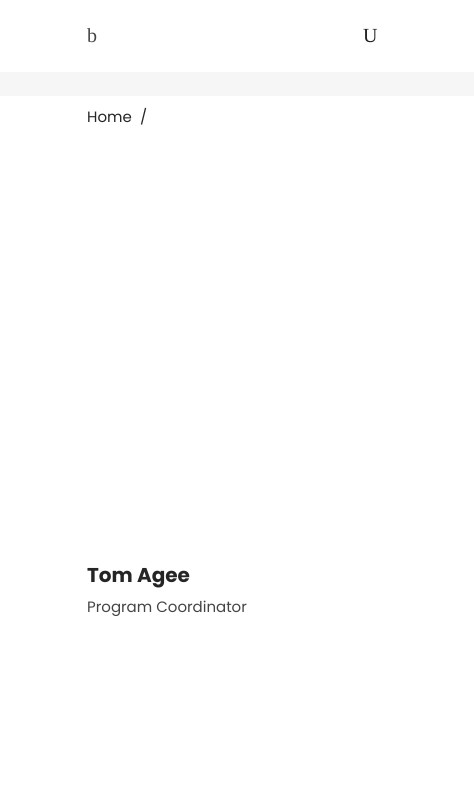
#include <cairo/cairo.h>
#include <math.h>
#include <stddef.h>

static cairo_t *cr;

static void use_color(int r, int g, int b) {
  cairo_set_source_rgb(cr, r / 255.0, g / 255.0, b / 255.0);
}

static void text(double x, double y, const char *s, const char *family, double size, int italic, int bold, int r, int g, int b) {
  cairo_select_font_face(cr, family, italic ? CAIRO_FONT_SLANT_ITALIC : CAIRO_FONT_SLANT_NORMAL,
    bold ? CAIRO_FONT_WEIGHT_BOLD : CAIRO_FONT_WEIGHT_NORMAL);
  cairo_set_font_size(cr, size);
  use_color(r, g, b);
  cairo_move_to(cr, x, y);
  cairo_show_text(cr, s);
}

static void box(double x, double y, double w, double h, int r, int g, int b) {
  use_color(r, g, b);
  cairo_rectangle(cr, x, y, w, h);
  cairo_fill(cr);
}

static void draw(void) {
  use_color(255, 255, 255);
  cairo_paint(cr);
  box(0, 72, 474, 24, 246, 246, 246);
  text(87, 42, "b", "Liberation Serif", 20, 0, 0, 68, 68, 68);
  text(363, 42, "U", "Liberation Serif", 20, 0, 0, 35, 31, 32);
  text(87, 122, "Home", "Poppins", 15, 0, 0, 37, 37, 37);
  text(140, 122, "/", "Poppins", 15, 0, 0, 37, 37, 37);
  text(87, 582, "Tom Agee", "Poppins", 20, 0, 1, 37, 37, 37);
  text(87, 612, "Program Coordinator", "Poppins", 15, 0, 0, 68, 68, 68);
}

int main(void) {
  cairo_surface_t *surface = cairo_image_surface_create(CAIRO_FORMAT_RGB24, 474, 796);
  cr = cairo_create(surface);
  cairo_font_options_t *options = cairo_font_options_create();
  cairo_font_options_set_hint_metrics(options, CAIRO_HINT_METRICS_OFF);
  cairo_font_options_set_hint_style(options, CAIRO_HINT_STYLE_NONE);
  cairo_set_font_options(cr, options);
  cairo_set_miter_limit(cr, 4);
  draw();
  cairo_surface_write_to_png(surface, "out.png");
  cairo_font_options_destroy(options);
  cairo_destroy(cr);
  cairo_surface_destroy(surface);
  return 0;
}
